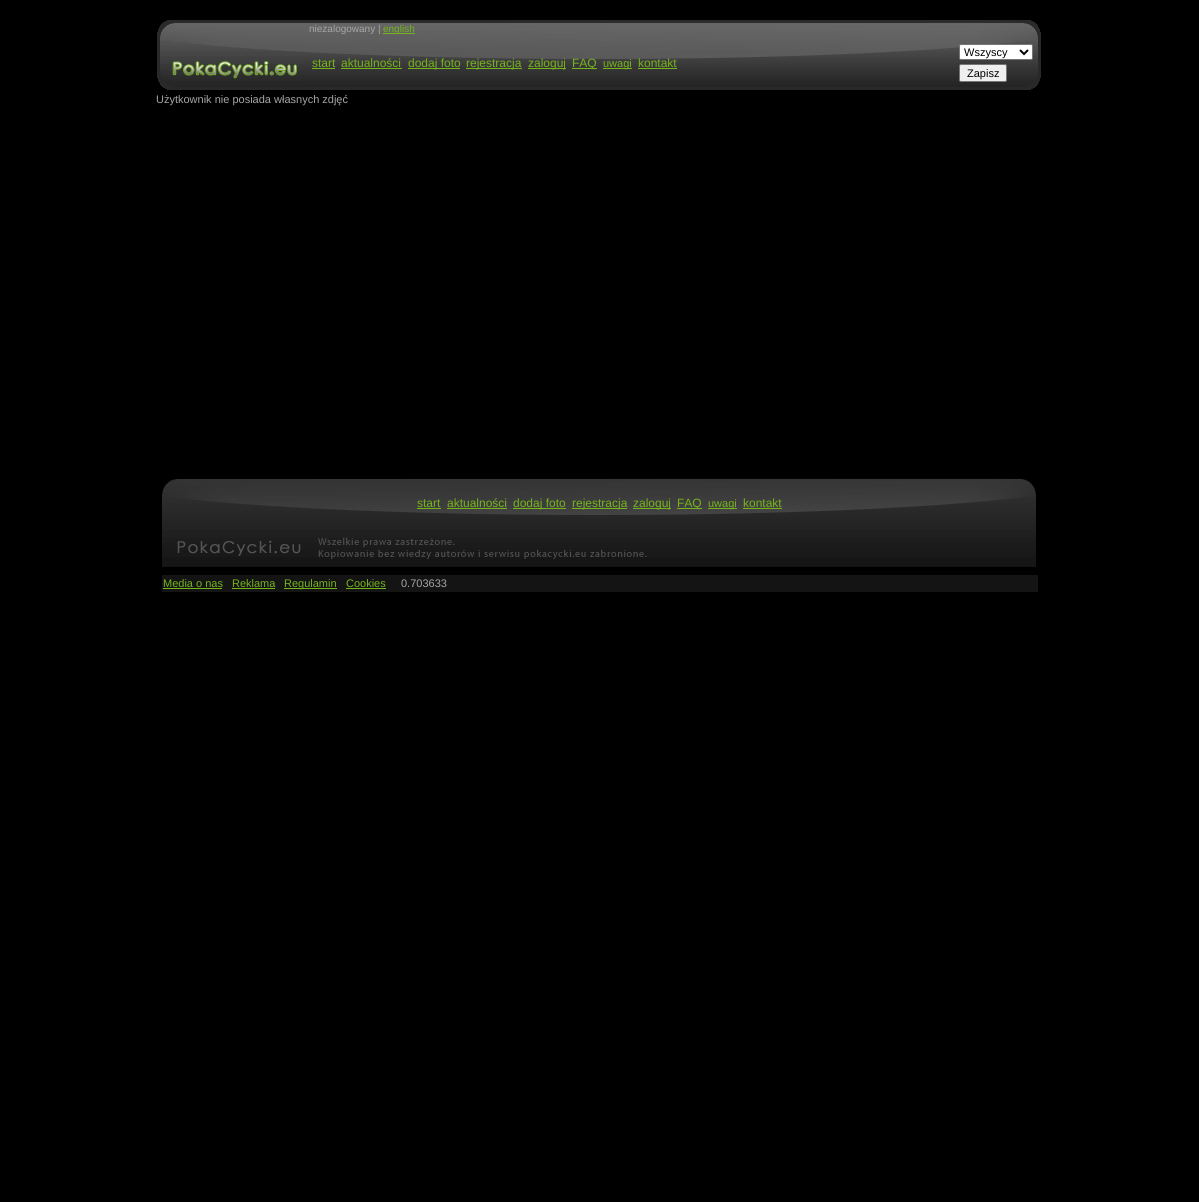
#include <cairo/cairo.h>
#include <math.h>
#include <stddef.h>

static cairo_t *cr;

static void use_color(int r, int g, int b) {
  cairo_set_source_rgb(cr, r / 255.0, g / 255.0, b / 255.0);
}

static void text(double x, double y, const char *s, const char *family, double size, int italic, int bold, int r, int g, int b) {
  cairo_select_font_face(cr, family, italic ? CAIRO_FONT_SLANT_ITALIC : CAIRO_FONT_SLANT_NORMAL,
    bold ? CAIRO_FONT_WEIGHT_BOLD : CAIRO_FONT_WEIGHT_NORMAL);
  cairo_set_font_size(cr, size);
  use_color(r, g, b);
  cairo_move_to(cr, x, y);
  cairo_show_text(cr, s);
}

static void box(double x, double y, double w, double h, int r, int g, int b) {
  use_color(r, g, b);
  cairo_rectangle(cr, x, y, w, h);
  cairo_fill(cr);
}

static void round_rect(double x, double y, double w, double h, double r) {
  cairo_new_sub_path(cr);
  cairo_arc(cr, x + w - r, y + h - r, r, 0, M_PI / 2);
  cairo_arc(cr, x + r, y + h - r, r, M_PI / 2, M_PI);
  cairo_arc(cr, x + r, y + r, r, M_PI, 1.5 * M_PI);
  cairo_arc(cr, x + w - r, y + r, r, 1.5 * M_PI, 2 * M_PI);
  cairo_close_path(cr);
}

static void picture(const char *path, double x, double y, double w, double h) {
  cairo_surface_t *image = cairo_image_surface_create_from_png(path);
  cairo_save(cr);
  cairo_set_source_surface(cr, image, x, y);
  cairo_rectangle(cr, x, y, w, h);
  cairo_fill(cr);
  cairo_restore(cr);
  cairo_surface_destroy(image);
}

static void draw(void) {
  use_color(0, 0, 0);
  cairo_paint(cr);
  picture("img_01.png", 157, 20, 152, 70);
  picture("img_02.png", 309, 20, 732, 70);
  box(383, 33, 32, 1, 118, 180, 28);
  box(312, 68, 23, 1, 118, 180, 28);
  box(341, 68, 61, 1, 118, 180, 28);
  box(408, 68, 52, 1, 118, 180, 28);
  box(466, 68, 56, 1, 118, 180, 28);
  box(528, 68, 38, 1, 118, 180, 28);
  box(572, 68, 25, 1, 118, 180, 28);
  box(603, 68, 29, 1, 118, 180, 28);
  box(638, 68, 39, 1, 118, 180, 28);
  use_color(255, 255, 255);
  round_rect(959.5, 44.5, 73, 15, 1.5);
  cairo_fill_preserve(cr);
  use_color(118, 118, 118);
  cairo_set_line_width(cr, 1);
  cairo_stroke(cr);
  cairo_new_path(cr);
  cairo_move_to(cr, 1020, 50);
  cairo_line_to(cr, 1024, 54);
  cairo_line_to(cr, 1028, 50);
  use_color(0, 0, 0);
  cairo_set_line_width(cr, 2);
  cairo_stroke(cr);
  use_color(239, 239, 239);
  round_rect(959.5, 64.5, 47, 17, 1.5);
  cairo_fill_preserve(cr);
  use_color(118, 118, 118);
  cairo_set_line_width(cr, 1);
  cairo_stroke(cr);
  picture("img_03.png", 162, 478, 874, 89);
  box(417, 508, 24, 1, 118, 180, 28);
  box(447, 508, 60, 1, 118, 180, 28);
  box(513, 508, 53, 1, 118, 180, 28);
  box(572, 508, 55, 1, 118, 180, 28);
  box(633, 508, 38, 1, 118, 180, 28);
  box(677, 508, 25, 1, 118, 180, 28);
  box(708, 508, 29, 1, 118, 180, 28);
  box(743, 508, 39, 1, 118, 180, 28);
  box(162, 575, 876, 17, 20, 20, 20);
  box(163, 588, 59, 1, 118, 180, 28);
  box(232, 588, 43, 1, 118, 180, 28);
  box(284, 588, 53, 1, 118, 180, 28);
  box(346, 588, 40, 1, 118, 180, 28);
  text(309, 32, "niezalogowany |", "Liberation Sans", 10, 0, 0, 166, 166, 166);
  text(383, 32, "english", "Liberation Sans", 10, 0, 0, 118, 180, 28);
  text(312, 67, "start", "Liberation Sans", 12, 0, 0, 118, 180, 28);
  text(341, 67, "aktualności", "Liberation Sans", 12, 0, 0, 118, 180, 28);
  text(408, 67, "dodaj foto", "Liberation Sans", 12, 0, 0, 118, 180, 28);
  text(466, 67, "rejestracja", "Liberation Sans", 12, 0, 0, 118, 180, 28);
  text(528, 67, "zaloguj", "Liberation Sans", 12, 0, 0, 118, 180, 28);
  text(572, 67, "FAQ", "Liberation Sans", 12, 0, 0, 118, 180, 28);
  text(603, 67, "uwagi", "Liberation Sans", 11, 0, 0, 118, 180, 28);
  text(638, 67, "kontakt", "Liberation Sans", 12, 0, 0, 118, 180, 28);
  text(964, 56, "Wszyscy", "Liberation Sans", 11, 0, 0, 0, 0, 0);
  text(967, 77, "Zapisz", "Liberation Sans", 11, 0, 0, 0, 0, 0);
  text(156, 103, "Użytkownik nie posiada własnych zdjęć", "Liberation Sans", 11, 0, 0, 166, 166, 166);
  text(417, 507, "start", "Liberation Sans", 12, 0, 0, 118, 180, 28);
  text(447, 507, "aktualności", "Liberation Sans", 12, 0, 0, 118, 180, 28);
  text(513, 507, "dodaj foto", "Liberation Sans", 12, 0, 0, 118, 180, 28);
  text(572, 507, "rejestracja", "Liberation Sans", 12, 0, 0, 118, 180, 28);
  text(633, 507, "zaloguj", "Liberation Sans", 12, 0, 0, 118, 180, 28);
  text(677, 507, "FAQ", "Liberation Sans", 12, 0, 0, 118, 180, 28);
  text(708, 507, "uwagi", "Liberation Sans", 11, 0, 0, 118, 180, 28);
  text(743, 507, "kontakt", "Liberation Sans", 12, 0, 0, 118, 180, 28);
  text(163, 587, "Media o nas", "Liberation Sans", 11, 0, 0, 118, 180, 28);
  text(232, 587, "Reklama", "Liberation Sans", 11, 0, 0, 118, 180, 28);
  text(284, 587, "Regulamin", "Liberation Sans", 11, 0, 0, 118, 180, 28);
  text(346, 587, "Cookies", "Liberation Sans", 11, 0, 0, 118, 180, 28);
  text(401, 587, "0.703633", "Liberation Sans", 11, 0, 0, 166, 166, 166);
}

int main(void) {
  cairo_surface_t *surface = cairo_image_surface_create(CAIRO_FORMAT_RGB24, 1199, 1202);
  cr = cairo_create(surface);
  cairo_font_options_t *options = cairo_font_options_create();
  cairo_font_options_set_hint_metrics(options, CAIRO_HINT_METRICS_OFF);
  cairo_font_options_set_hint_style(options, CAIRO_HINT_STYLE_NONE);
  cairo_set_font_options(cr, options);
  cairo_set_miter_limit(cr, 4);
  draw();
  cairo_surface_write_to_png(surface, "out.png");
  cairo_font_options_destroy(options);
  cairo_destroy(cr);
  cairo_surface_destroy(surface);
  return 0;
}
